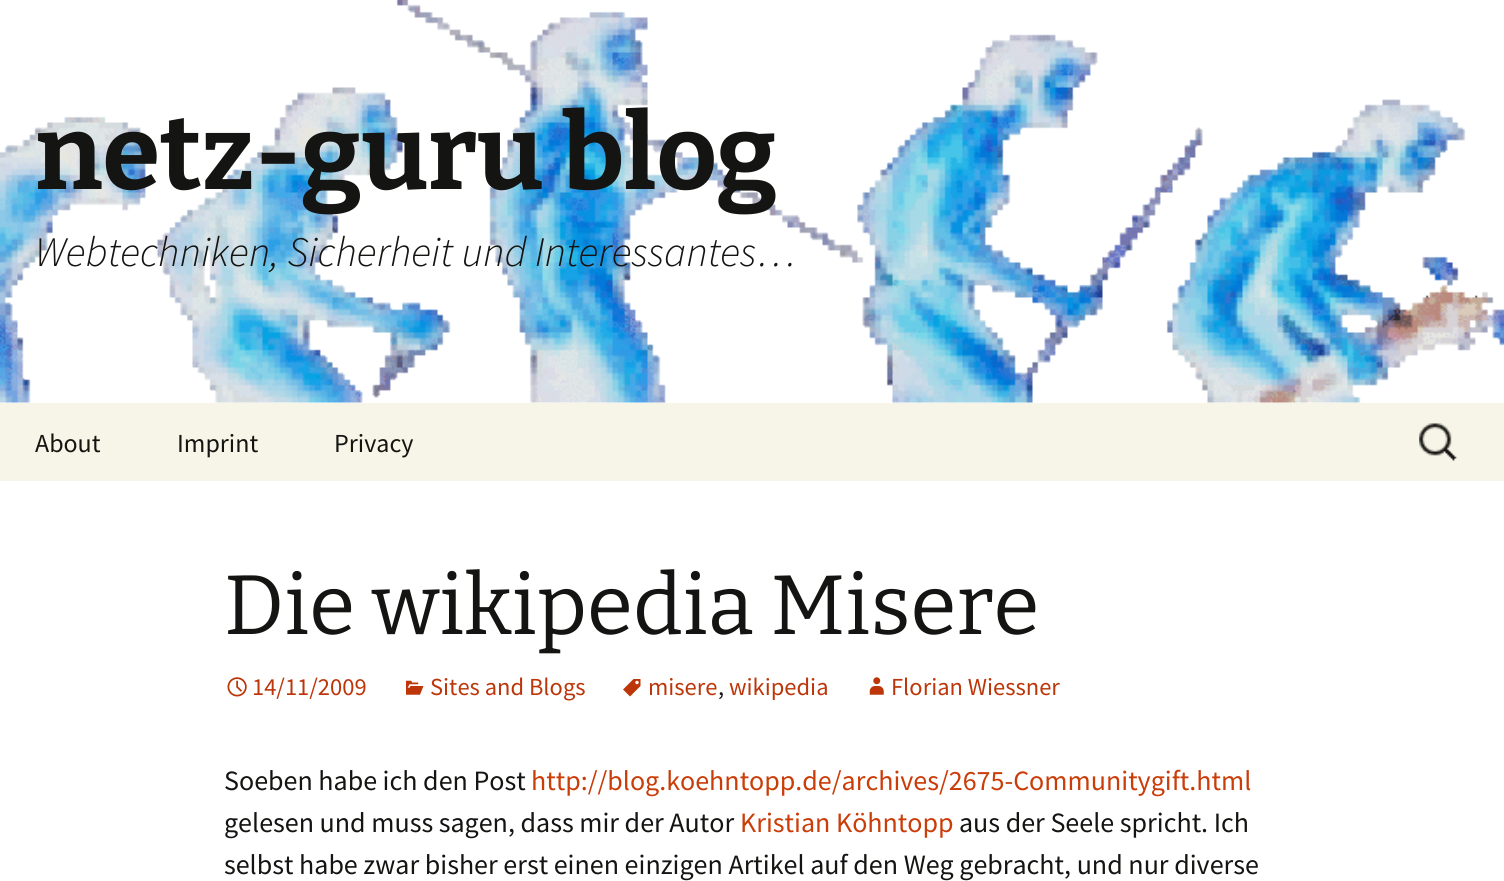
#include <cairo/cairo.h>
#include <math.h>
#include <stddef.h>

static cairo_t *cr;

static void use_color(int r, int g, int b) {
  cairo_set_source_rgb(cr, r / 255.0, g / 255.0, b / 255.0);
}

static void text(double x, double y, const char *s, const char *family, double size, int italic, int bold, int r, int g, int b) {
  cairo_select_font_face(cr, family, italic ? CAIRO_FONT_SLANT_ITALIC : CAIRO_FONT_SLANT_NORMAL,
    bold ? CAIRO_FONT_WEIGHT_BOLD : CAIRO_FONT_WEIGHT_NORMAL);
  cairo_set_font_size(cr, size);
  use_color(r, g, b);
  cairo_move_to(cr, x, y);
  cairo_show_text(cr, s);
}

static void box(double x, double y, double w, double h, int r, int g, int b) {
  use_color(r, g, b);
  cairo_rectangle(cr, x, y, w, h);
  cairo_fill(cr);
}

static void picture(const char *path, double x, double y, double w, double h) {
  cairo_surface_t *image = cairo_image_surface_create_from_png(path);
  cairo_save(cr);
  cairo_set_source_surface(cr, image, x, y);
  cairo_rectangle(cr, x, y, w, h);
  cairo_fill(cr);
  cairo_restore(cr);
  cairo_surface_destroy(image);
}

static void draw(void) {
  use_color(255, 255, 255);
  cairo_paint(cr);
  picture("img_01.png", 0, 0, 1504, 403);
  box(0, 403, 1504, 78, 247, 245, 231);
  picture("img_02.png", 1419, 423, 38, 38);
  picture("img_03.png", 227, 677, 20, 20);
  picture("img_04.png", 406, 680, 18, 15);
  picture("img_05.png", 623, 679, 18, 18);
  picture("img_06.png", 869, 677, 15, 18);
  text(35, 189, "netz-guru blog", "Bitter Thin", 105, 0, 0, 20, 20, 18);
  text(35, 266, "Webtechniken, Sicherheit und Interessantes…", "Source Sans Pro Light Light", 42, 1, 0, 20, 20, 18);
  text(35, 452, "About", "Source Sans Pro", 26, 0, 0, 20, 20, 18);
  text(177, 452, "Imprint", "Source Sans Pro", 26, 0, 0, 20, 20, 18);
  text(334, 452, "Privacy", "Source Sans Pro", 26, 0, 0, 20, 20, 18);
  text(224, 634, "Die wikipedia Misere", "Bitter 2 Thin", 84, 0, 0, 20, 20, 18);
  text(252, 695, "14/11/2009", "Source Sans Pro", 24.5, 0, 0, 188, 54, 10);
  text(430, 695, "Sites and Blogs", "Source Sans Pro", 24.5, 0, 0, 188, 54, 10);
  text(648, 695, "misere", "Source Sans Pro", 24.5, 0, 0, 188, 54, 10);
  text(718, 695, ",", "Source Sans Pro", 24.5, 0, 0, 20, 20, 18);
  text(729, 695, "wikipedia", "Source Sans Pro", 24.5, 0, 0, 188, 54, 10);
  text(891, 695, "Florian Wiessner", "Source Sans Pro", 24.5, 0, 0, 188, 54, 10);
  text(224, 790, "Soeben habe ich den Post", "Source Sans Pro", 28, 0, 0, 20, 20, 18);
  text(531, 790, "http://blog.koehntopp.de/archives/2675-Communitygift.html", "Source Sans Pro", 28, 0, 0, 202, 60, 8);
  text(224, 832, "gelesen und muss sagen, dass mir der Autor", "Source Sans Pro", 28, 0, 0, 20, 20, 18);
  text(740, 832, "Kristian Köhntopp", "Source Sans Pro", 28, 0, 0, 202, 60, 8);
  text(959, 832, "aus der Seele spricht. Ich", "Source Sans Pro", 28, 0, 0, 20, 20, 18);
  text(224, 874, "selbst habe zwar bisher erst einen einzigen Artikel auf den Weg gebracht, und nur diverse", "Source Sans Pro", 28, 0, 0, 20, 20, 18);
}

int main(void) {
  cairo_surface_t *surface = cairo_image_surface_create(CAIRO_FORMAT_RGB24, 1504, 881);
  cr = cairo_create(surface);
  cairo_font_options_t *options = cairo_font_options_create();
  cairo_font_options_set_hint_metrics(options, CAIRO_HINT_METRICS_OFF);
  cairo_font_options_set_hint_style(options, CAIRO_HINT_STYLE_NONE);
  cairo_set_font_options(cr, options);
  cairo_set_miter_limit(cr, 4);
  draw();
  cairo_surface_write_to_png(surface, "out.png");
  cairo_font_options_destroy(options);
  cairo_destroy(cr);
  cairo_surface_destroy(surface);
  return 0;
}
